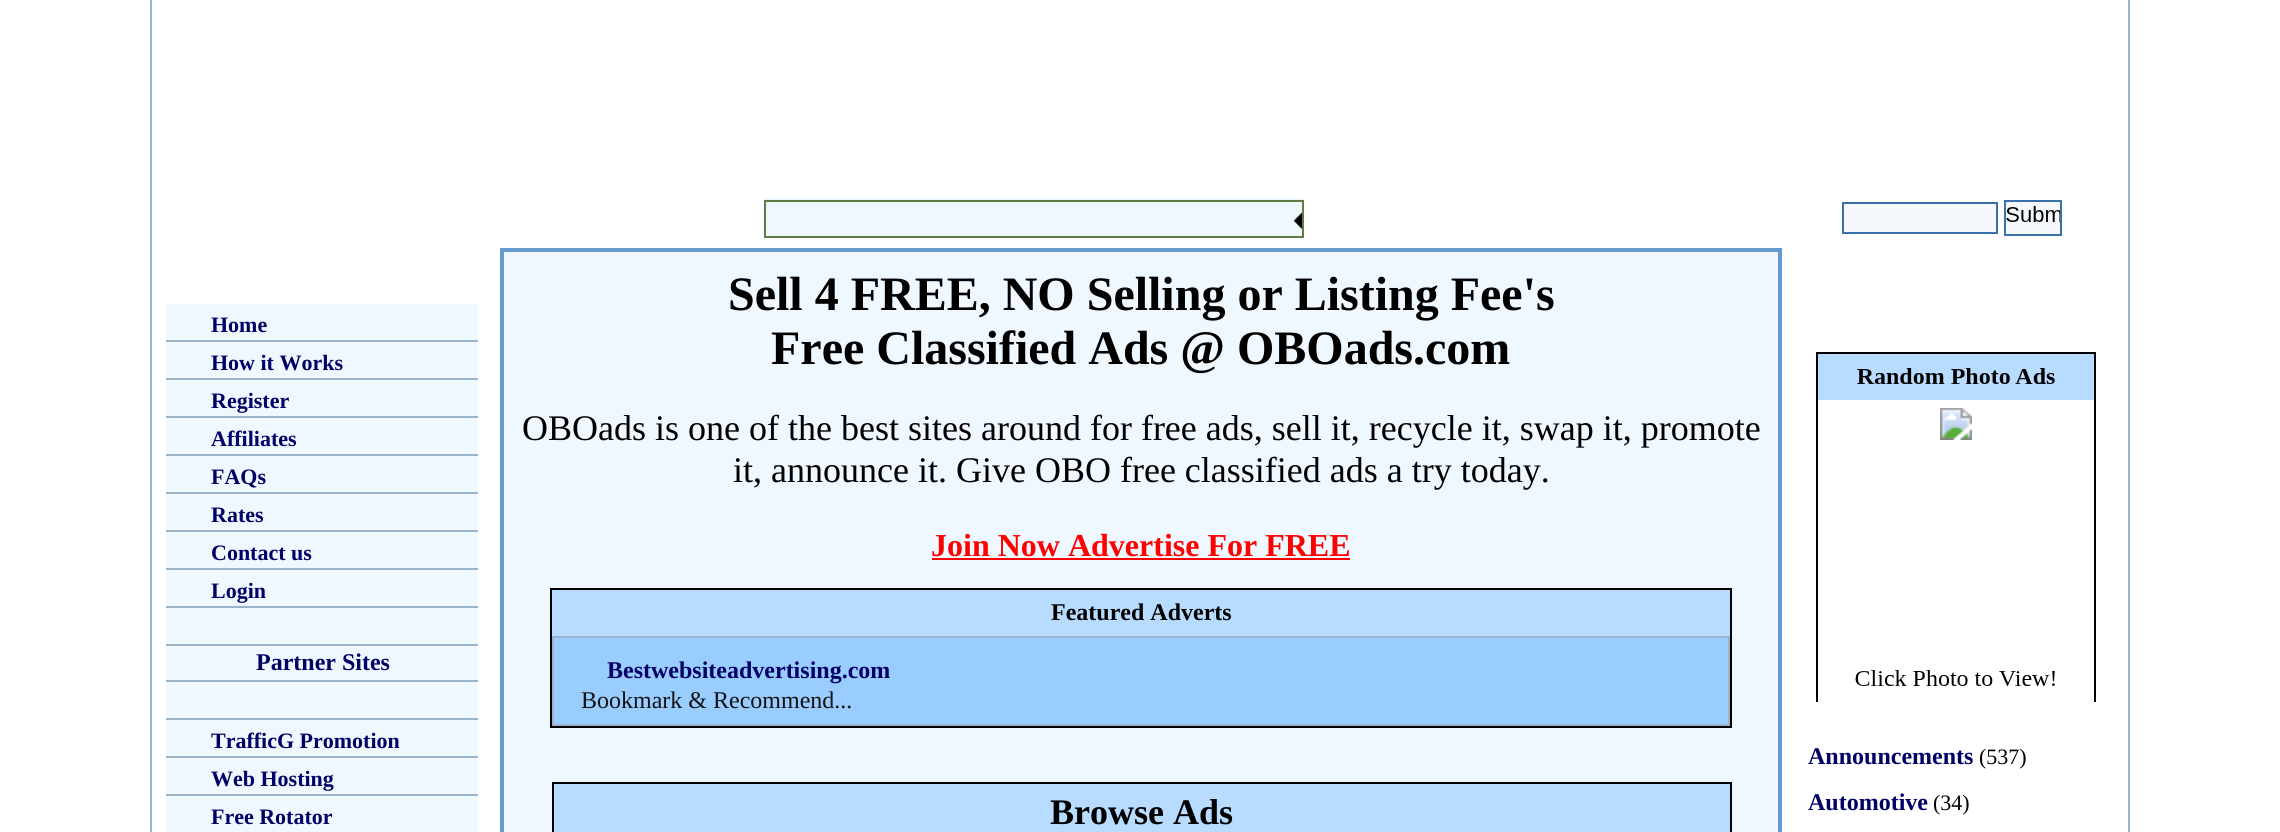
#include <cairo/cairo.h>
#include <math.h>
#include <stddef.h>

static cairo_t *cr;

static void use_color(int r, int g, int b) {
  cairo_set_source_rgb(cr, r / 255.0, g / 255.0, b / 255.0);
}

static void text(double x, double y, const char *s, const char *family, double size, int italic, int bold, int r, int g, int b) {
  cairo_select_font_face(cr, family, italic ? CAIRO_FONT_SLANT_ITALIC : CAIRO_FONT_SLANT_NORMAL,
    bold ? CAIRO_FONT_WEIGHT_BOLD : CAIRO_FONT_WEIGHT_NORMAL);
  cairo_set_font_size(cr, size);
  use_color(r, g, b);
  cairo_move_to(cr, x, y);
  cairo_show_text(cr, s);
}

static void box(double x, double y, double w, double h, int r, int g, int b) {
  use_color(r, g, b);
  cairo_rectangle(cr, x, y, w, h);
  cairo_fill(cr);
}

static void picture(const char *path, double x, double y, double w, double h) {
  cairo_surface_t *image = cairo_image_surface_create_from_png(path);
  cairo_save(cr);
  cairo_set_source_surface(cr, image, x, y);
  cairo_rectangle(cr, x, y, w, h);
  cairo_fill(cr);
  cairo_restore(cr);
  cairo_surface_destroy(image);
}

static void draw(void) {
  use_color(255, 255, 255);
  cairo_paint(cr);
  box(2128, 0, 2, 832, 154, 179, 202);
  box(150, 0, 2, 832, 154, 179, 202);
  picture("img_01.png", 764, 198, 540, 40);
  use_color(244, 248, 251);
  cairo_rectangle(cr, 1843, 203, 154, 30);
  cairo_fill_preserve(cr);
  use_color(56, 113, 169);
  cairo_stroke(cr);
  use_color(244, 248, 251);
  cairo_rectangle(cr, 2005, 201, 56, 34);
  cairo_fill_preserve(cr);
  use_color(56, 113, 169);
  cairo_stroke(cr);
  picture("img_02.png", 2006, 206, 54, 16);
  box(166, 304, 312, 36, 240, 248, 255);
  box(166, 340, 312, 2, 154, 179, 202);
  box(166, 342, 312, 36, 240, 248, 255);
  box(166, 378, 312, 2, 154, 179, 202);
  box(166, 380, 312, 36, 240, 248, 255);
  box(166, 416, 312, 2, 154, 179, 202);
  box(166, 418, 312, 36, 240, 248, 255);
  box(166, 454, 312, 2, 154, 179, 202);
  box(166, 456, 312, 36, 240, 248, 255);
  box(166, 492, 312, 2, 154, 179, 202);
  box(166, 494, 312, 36, 240, 248, 255);
  box(166, 530, 312, 2, 154, 179, 202);
  box(166, 532, 312, 36, 240, 248, 255);
  box(166, 568, 312, 2, 154, 179, 202);
  box(166, 570, 312, 36, 240, 248, 255);
  box(166, 606, 312, 2, 154, 179, 202);
  box(166, 608, 312, 36, 240, 248, 255);
  box(166, 644, 312, 2, 154, 179, 202);
  box(166, 646, 312, 34, 240, 248, 255);
  box(166, 680, 312, 2, 154, 179, 202);
  box(166, 682, 312, 36, 240, 248, 255);
  box(166, 718, 312, 2, 154, 179, 202);
  box(166, 720, 312, 36, 240, 248, 255);
  box(166, 756, 312, 2, 154, 179, 202);
  box(166, 758, 312, 36, 240, 248, 255);
  box(166, 794, 312, 2, 154, 179, 202);
  box(166, 796, 312, 36, 240, 248, 255);
  cairo_rectangle(cr, 502, 250, 1278, 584);
  cairo_fill_preserve(cr);
  use_color(102, 153, 204);
  cairo_set_line_width(cr, 4);
  cairo_stroke(cr);
  box(932, 558, 418, 2, 255, 0, 0);
  cairo_rectangle(cr, 551, 589, 1180, 138);
  use_color(0, 0, 0);
  cairo_set_line_width(cr, 2);
  cairo_stroke(cr);
  box(552, 590, 1178, 46, 183, 220, 255);
  use_color(153, 204, 255);
  cairo_rectangle(cr, 553, 637, 1176, 88);
  cairo_fill_preserve(cr);
  use_color(154, 179, 202);
  cairo_stroke(cr);
  cairo_rectangle(cr, 553, 783, 1178, 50);
  use_color(0, 0, 0);
  cairo_stroke(cr);
  box(554, 784, 1176, 48, 183, 220, 255);
  picture("img_03.png", 1816, 352, 280, 350);
  text(211, 332, "Home", "Liberation Serif", 22, 0, 1, 0, 0, 102);
  text(211, 370, "How it Works", "Liberation Serif", 22, 0, 1, 0, 0, 102);
  text(211, 408, "Register", "Liberation Serif", 22, 0, 1, 0, 0, 102);
  text(211, 446, "Affiliates", "Liberation Serif", 22, 0, 1, 0, 0, 102);
  text(211, 484, "FAQs", "Liberation Serif", 22, 0, 1, 0, 0, 102);
  text(211, 522, "Rates", "Liberation Serif", 22, 0, 1, 0, 0, 102);
  text(211, 560, "Contact us", "Liberation Serif", 22, 0, 1, 0, 0, 102);
  text(211, 598, "Login", "Liberation Serif", 22, 0, 1, 0, 0, 102);
  text(256, 670, "Partner Sites", "Liberation Serif", 24, 0, 1, 0, 0, 102);
  text(211, 748, "TrafficG Promotion", "Liberation Serif", 22, 0, 1, 0, 0, 102);
  text(211, 786, "Web Hosting", "Liberation Serif", 22, 0, 1, 0, 0, 102);
  text(211, 824, "Free Rotator", "Liberation Serif", 22, 0, 1, 0, 0, 102);
  text(728, 310, "Sell 4 FREE, NO Selling or Listing Fee's", "Liberation Serif", 48, 0, 1, 0, 0, 0);
  text(771, 364, "Free Classified Ads @ OBOads.com", "Liberation Serif", 48, 0, 1, 0, 0, 0);
  text(522, 440, "OBOads is one of the best sites around for free ads, sell it, recycle it, swap it, promote", "Liberation Serif", 36, 0, 0, 0, 0, 0);
  text(733, 482, "it, announce it. Give OBO free classified ads a try today.", "Liberation Serif", 36, 0, 0, 0, 0, 0);
  text(931, 556, "Join Now Advertise For FREE", "Liberation Serif", 32, 0, 1, 255, 0, 0);
  text(1051, 620, "Featured Adverts", "Liberation Serif", 24, 0, 1, 0, 0, 0);
  text(607, 678, "Bestwebsiteadvertising.com", "Liberation Serif", 24, 0, 1, 0, 0, 102);
  text(581, 708, "Bookmark & Recommend...", "Liberation Serif", 24, 0, 0, 17, 17, 17);
  text(1050, 824, "Browse Ads", "Liberation Serif", 36, 0, 1, 0, 0, 0);
  text(1808, 764, "Announcements", "Liberation Serif", 24, 0, 1, 0, 0, 102);
  text(1979, 764, "(537)", "Liberation Serif", 22, 0, 0, 0, 0, 0);
  text(1808, 810, "Automotive", "Liberation Serif", 24, 0, 1, 0, 0, 102);
  text(1933, 810, "(34)", "Liberation Serif", 22, 0, 0, 0, 0, 0);
}

int main(void) {
  cairo_surface_t *surface = cairo_image_surface_create(CAIRO_FORMAT_RGB24, 2280, 832);
  cr = cairo_create(surface);
  cairo_font_options_t *options = cairo_font_options_create();
  cairo_font_options_set_hint_metrics(options, CAIRO_HINT_METRICS_OFF);
  cairo_font_options_set_hint_style(options, CAIRO_HINT_STYLE_NONE);
  cairo_set_font_options(cr, options);
  cairo_set_miter_limit(cr, 4);
  draw();
  cairo_surface_write_to_png(surface, "out.png");
  cairo_font_options_destroy(options);
  cairo_destroy(cr);
  cairo_surface_destroy(surface);
  return 0;
}
